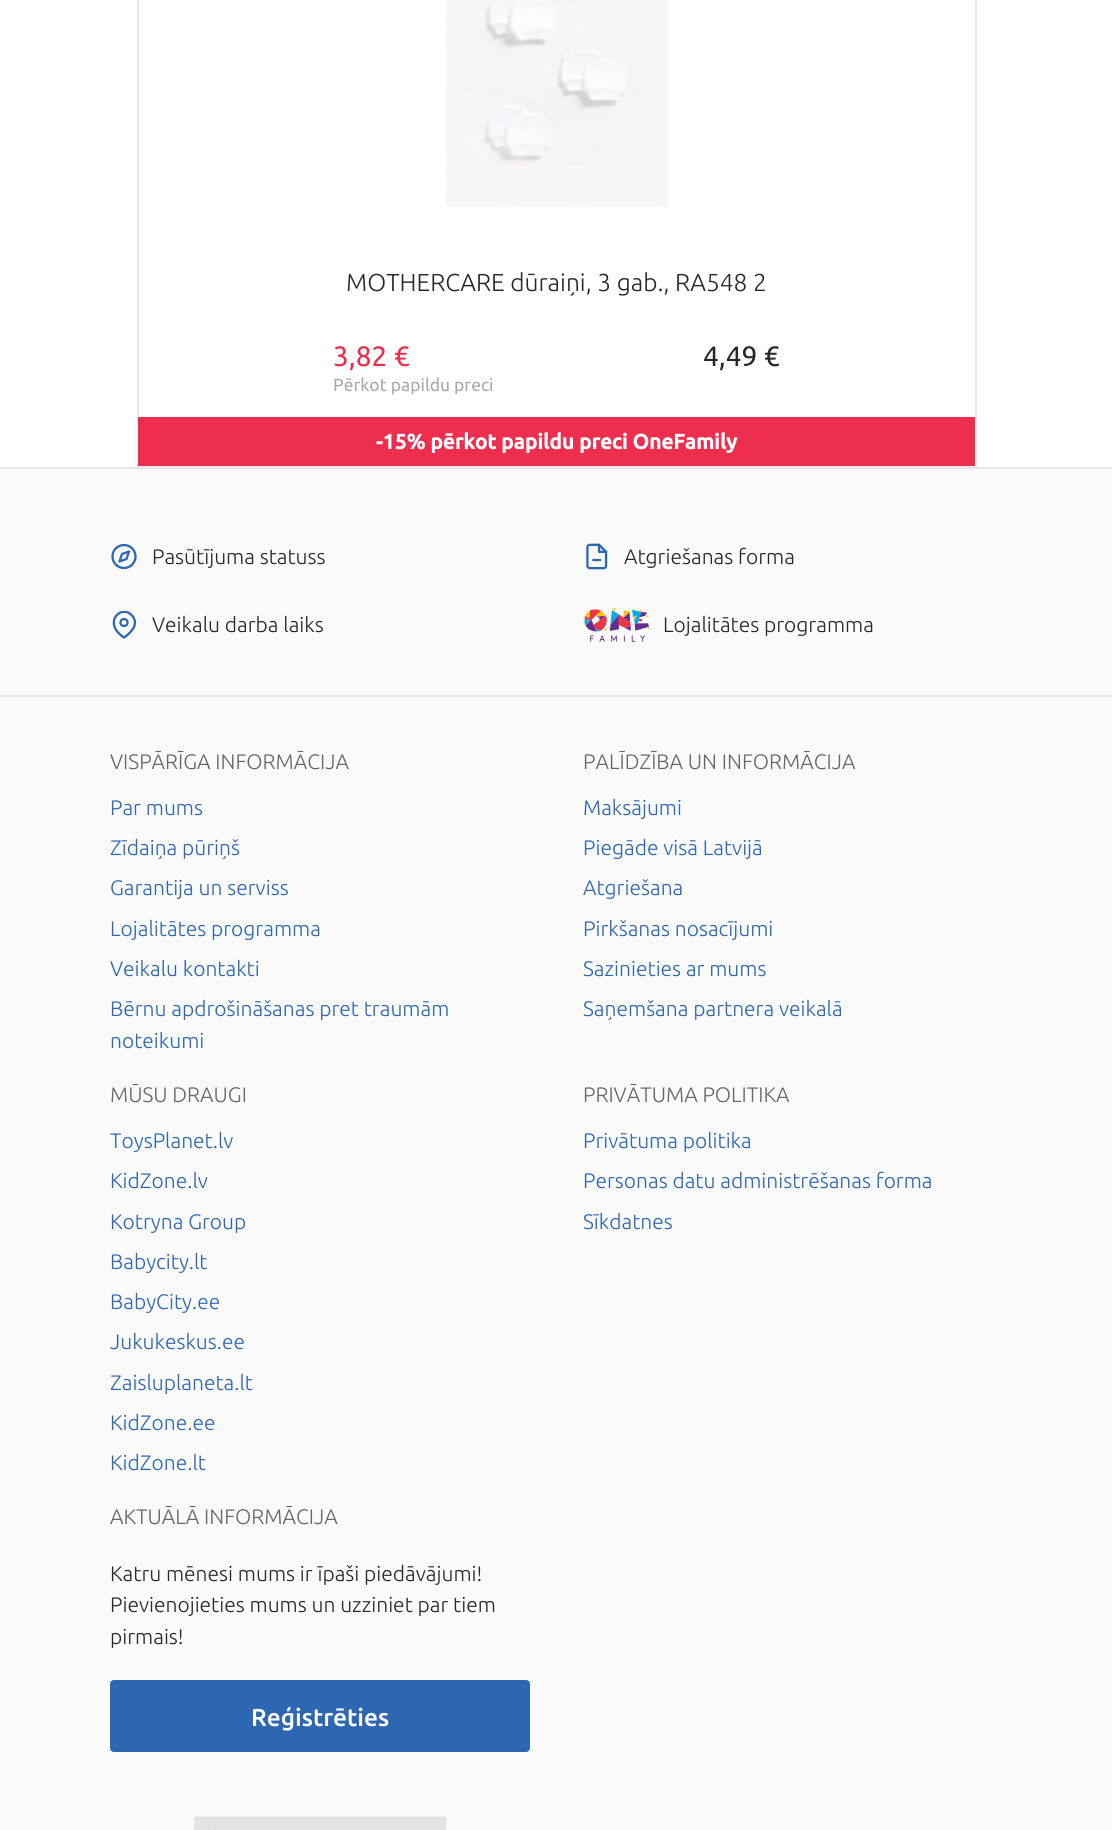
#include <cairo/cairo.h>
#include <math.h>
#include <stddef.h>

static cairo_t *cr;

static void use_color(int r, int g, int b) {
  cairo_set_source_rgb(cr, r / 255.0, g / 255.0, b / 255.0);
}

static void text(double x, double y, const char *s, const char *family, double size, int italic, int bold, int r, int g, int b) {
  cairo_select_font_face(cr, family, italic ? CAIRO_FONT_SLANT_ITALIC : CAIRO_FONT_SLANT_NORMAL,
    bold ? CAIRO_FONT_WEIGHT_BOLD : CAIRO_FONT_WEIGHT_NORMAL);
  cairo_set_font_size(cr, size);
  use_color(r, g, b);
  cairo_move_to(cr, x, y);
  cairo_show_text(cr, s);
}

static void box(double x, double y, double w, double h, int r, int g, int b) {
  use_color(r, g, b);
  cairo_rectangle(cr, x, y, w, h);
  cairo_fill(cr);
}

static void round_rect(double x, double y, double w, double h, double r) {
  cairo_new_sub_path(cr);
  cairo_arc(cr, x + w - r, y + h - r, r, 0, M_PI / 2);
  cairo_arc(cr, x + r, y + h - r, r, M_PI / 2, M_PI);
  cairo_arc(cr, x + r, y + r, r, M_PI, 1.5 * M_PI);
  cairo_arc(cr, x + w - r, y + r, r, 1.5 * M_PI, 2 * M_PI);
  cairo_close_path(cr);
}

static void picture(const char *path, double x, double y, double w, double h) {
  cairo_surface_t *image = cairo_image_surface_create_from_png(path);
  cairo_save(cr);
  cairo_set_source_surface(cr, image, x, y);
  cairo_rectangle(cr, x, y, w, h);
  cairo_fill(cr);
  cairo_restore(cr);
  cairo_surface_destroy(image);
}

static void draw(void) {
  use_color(255, 255, 255);
  cairo_paint(cr);
  cairo_rectangle(cr, 138, -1, 838, 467);
  use_color(231, 231, 231);
  cairo_stroke(cr);
  picture("img_01.png", 446, 0, 222, 207);
  box(138, 417, 837, 49, 238, 46, 79);
  box(0, 469, 1112, 1361, 250, 250, 250);
  box(0, 467, 1112, 2, 231, 231, 231);
  cairo_arc(cr, 124, 556.5, 11.5, 0, 2 * M_PI);
  use_color(45, 102, 177);
  cairo_set_line_width(cr, 2.3);
  cairo_stroke(cr);
  cairo_new_path(cr);
  cairo_move_to(cr, 129, 551.5);
  cairo_line_to(cr, 126.5, 559);
  cairo_line_to(cr, 119.5, 561.5);
  cairo_line_to(cr, 122, 554);
  cairo_close_path(cr);
  cairo_set_line_cap(cr, CAIRO_LINE_CAP_ROUND);
  cairo_set_line_join(cr, CAIRO_LINE_JOIN_ROUND);
  cairo_stroke(cr);
  picture("img_02.png", 586, 543, 22, 27);
  cairo_save(cr);
  cairo_rectangle(cr, 110, 611, 28, 28);
  cairo_clip(cr);
  cairo_new_path(cr);
  cairo_move_to(cr, 135, 622.5);
  cairo_curve_to(cr, 135, 630.5, 124, 637.5, 124, 637.5);
  cairo_curve_to(cr, 102, 623, 121, 604, 131.5, 615);
  cairo_curve_to(cr, 133.5, 617, 135, 619.5, 135, 622.5);
  cairo_close_path(cr);
  cairo_stroke(cr);
  cairo_restore(cr);
  cairo_arc(cr, 124, 622.5, 3.5, 0, 2 * M_PI);
  cairo_set_line_cap(cr, CAIRO_LINE_CAP_BUTT);
  cairo_set_line_join(cr, CAIRO_LINE_JOIN_MITER);
  cairo_stroke(cr);
  picture("img_03.png", 583, 607, 66, 35);
  box(0, 695, 1112, 2, 231, 231, 231);
  use_color(45, 102, 177);
  round_rect(111, 1681, 418, 70, 3);
  cairo_fill_preserve(cr);
  cairo_set_line_width(cr, 2);
  cairo_stroke(cr);
  picture("img_04.png", 194, 1816, 253, 14);
  text(346, 291, "MOTHERCARE dūraiņi, 3 gab., RA548 2", "Ubuntu Light", 24.5, 0, 0, 40, 40, 40);
  text(333, 366, "3,82 €", "Ubuntu", 28, 0, 0, 238, 46, 79);
  text(333, 391, "Pērkot papildu preci", "Ubuntu", 17.5, 0, 0, 169, 169, 169);
  text(703, 366, "4,49 €", "Ubuntu", 28, 0, 0, 40, 40, 40);
  text(376, 449, "-15% pērkot papildu preci OneFamily", "Ubuntu", 21, 0, 1, 255, 255, 255);
  text(152, 564, "Pasūtījuma statuss", "Ubuntu Light", 21, 0, 0, 40, 40, 40);
  text(624, 564, "Atgriešanas forma", "Ubuntu Light", 21, 0, 0, 40, 40, 40);
  text(152, 632, "Veikalu darba laiks", "Ubuntu Light", 21, 0, 0, 40, 40, 40);
  text(663, 632, "Lojalitātes programma", "Ubuntu Light", 21, 0, 0, 40, 40, 40);
  text(110, 769, "VISPĀRĪGA INFORMĀCIJA", "Ubuntu Light", 21, 0, 0, 102, 102, 102);
  text(110, 815, "Par mums", "Ubuntu Light", 21, 0, 0, 45, 102, 177);
  text(110, 855, "Zīdaiņa pūriņš", "Ubuntu Light", 21, 0, 0, 45, 102, 177);
  text(110, 895, "Garantija un serviss", "Ubuntu Light", 21, 0, 0, 45, 102, 177);
  text(110, 936, "Lojalitātes programma", "Ubuntu Light", 21, 0, 0, 45, 102, 177);
  text(110, 976, "Veikalu kontakti", "Ubuntu Light", 21, 0, 0, 45, 102, 177);
  text(110, 1016, "Bērnu apdrošināšanas pret traumām", "Ubuntu Light", 21, 0, 0, 45, 102, 177);
  text(110, 1048, "noteikumi", "Ubuntu Light", 21, 0, 0, 45, 102, 177);
  text(583, 769, "PALĪDZĪBA UN INFORMĀCIJA", "Ubuntu Light", 21, 0, 0, 102, 102, 102);
  text(583, 815, "Maksājumi", "Ubuntu Light", 21, 0, 0, 45, 102, 177);
  text(583, 855, "Piegāde visā Latvijā", "Ubuntu Light", 21, 0, 0, 45, 102, 177);
  text(583, 895, "Atgriešana", "Ubuntu Light", 21, 0, 0, 45, 102, 177);
  text(583, 936, "Pirkšanas nosacījumi", "Ubuntu Light", 21, 0, 0, 45, 102, 177);
  text(583, 976, "Sazinieties ar mums", "Ubuntu Light", 21, 0, 0, 45, 102, 177);
  text(583, 1016, "Saņemšana partnera veikalā", "Ubuntu Light", 21, 0, 0, 45, 102, 177);
  text(110, 1102, "MŪSU DRAUGI", "Ubuntu Light", 21, 0, 0, 102, 102, 102);
  text(110, 1148, "ToysPlanet.lv", "Ubuntu Light", 21, 0, 0, 45, 102, 177);
  text(110, 1188, "KidZone.lv", "Ubuntu Light", 21, 0, 0, 45, 102, 177);
  text(110, 1229, "Kotryna Group", "Ubuntu Light", 21, 0, 0, 45, 102, 177);
  text(110, 1269, "Babycity.lt", "Ubuntu Light", 21, 0, 0, 45, 102, 177);
  text(110, 1309, "BabyCity.ee", "Ubuntu Light", 21, 0, 0, 45, 102, 177);
  text(110, 1349, "Jukukeskus.ee", "Ubuntu Light", 21, 0, 0, 45, 102, 177);
  text(110, 1390, "Zaisluplaneta.lt", "Ubuntu Light", 21, 0, 0, 45, 102, 177);
  text(110, 1430, "KidZone.ee", "Ubuntu Light", 21, 0, 0, 45, 102, 177);
  text(110, 1470, "KidZone.lt", "Ubuntu Light", 21, 0, 0, 45, 102, 177);
  text(583, 1102, "PRIVĀTUMA POLITIKA", "Ubuntu Light", 21, 0, 0, 102, 102, 102);
  text(583, 1148, "Privātuma politika", "Ubuntu Light", 21, 0, 0, 45, 102, 177);
  text(583, 1188, "Personas datu administrēšanas forma", "Ubuntu Light", 21, 0, 0, 45, 102, 177);
  text(583, 1229, "Sīkdatnes", "Ubuntu Light", 21, 0, 0, 45, 102, 177);
  text(110, 1524, "AKTUĀLĀ INFORMĀCIJA", "Ubuntu Light", 21, 0, 0, 102, 102, 102);
  text(110, 1581, "Katru mēnesi mums ir īpaši piedāvājumi!", "Ubuntu Light", 21, 0, 0, 40, 40, 40);
  text(110, 1612, "Pievienojieties mums un uzziniet par tiem", "Ubuntu Light", 21, 0, 0, 40, 40, 40);
  text(110, 1644, "pirmais!", "Ubuntu Light", 21, 0, 0, 40, 40, 40);
  text(251, 1726, "Reģistrēties", "Ubuntu Medium", 24.5, 0, 0, 255, 255, 255);
}

int main(void) {
  cairo_surface_t *surface = cairo_image_surface_create(CAIRO_FORMAT_RGB24, 1112, 1830);
  cr = cairo_create(surface);
  cairo_font_options_t *options = cairo_font_options_create();
  cairo_font_options_set_hint_metrics(options, CAIRO_HINT_METRICS_OFF);
  cairo_font_options_set_hint_style(options, CAIRO_HINT_STYLE_NONE);
  cairo_set_font_options(cr, options);
  cairo_set_miter_limit(cr, 4);
  draw();
  cairo_surface_write_to_png(surface, "out.png");
  cairo_font_options_destroy(options);
  cairo_destroy(cr);
  cairo_surface_destroy(surface);
  return 0;
}
